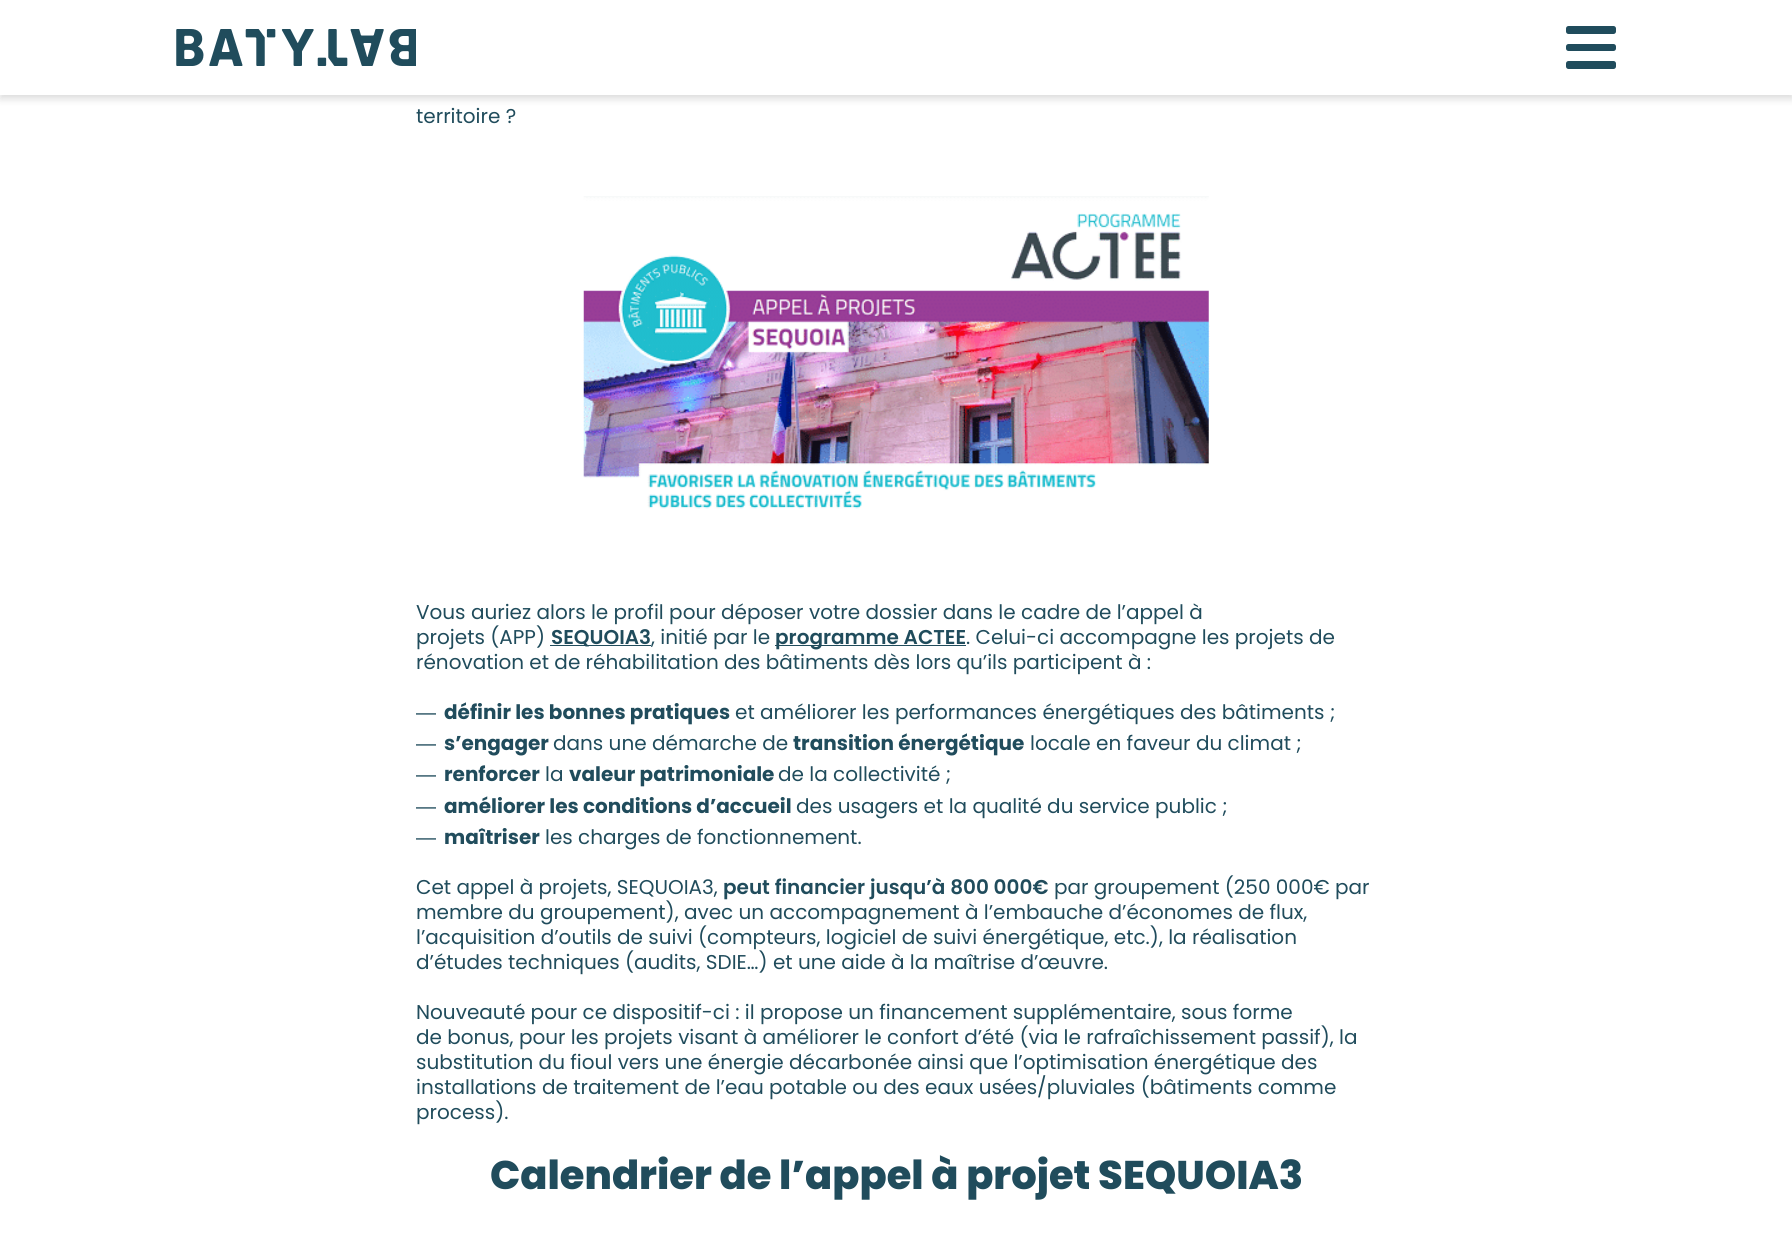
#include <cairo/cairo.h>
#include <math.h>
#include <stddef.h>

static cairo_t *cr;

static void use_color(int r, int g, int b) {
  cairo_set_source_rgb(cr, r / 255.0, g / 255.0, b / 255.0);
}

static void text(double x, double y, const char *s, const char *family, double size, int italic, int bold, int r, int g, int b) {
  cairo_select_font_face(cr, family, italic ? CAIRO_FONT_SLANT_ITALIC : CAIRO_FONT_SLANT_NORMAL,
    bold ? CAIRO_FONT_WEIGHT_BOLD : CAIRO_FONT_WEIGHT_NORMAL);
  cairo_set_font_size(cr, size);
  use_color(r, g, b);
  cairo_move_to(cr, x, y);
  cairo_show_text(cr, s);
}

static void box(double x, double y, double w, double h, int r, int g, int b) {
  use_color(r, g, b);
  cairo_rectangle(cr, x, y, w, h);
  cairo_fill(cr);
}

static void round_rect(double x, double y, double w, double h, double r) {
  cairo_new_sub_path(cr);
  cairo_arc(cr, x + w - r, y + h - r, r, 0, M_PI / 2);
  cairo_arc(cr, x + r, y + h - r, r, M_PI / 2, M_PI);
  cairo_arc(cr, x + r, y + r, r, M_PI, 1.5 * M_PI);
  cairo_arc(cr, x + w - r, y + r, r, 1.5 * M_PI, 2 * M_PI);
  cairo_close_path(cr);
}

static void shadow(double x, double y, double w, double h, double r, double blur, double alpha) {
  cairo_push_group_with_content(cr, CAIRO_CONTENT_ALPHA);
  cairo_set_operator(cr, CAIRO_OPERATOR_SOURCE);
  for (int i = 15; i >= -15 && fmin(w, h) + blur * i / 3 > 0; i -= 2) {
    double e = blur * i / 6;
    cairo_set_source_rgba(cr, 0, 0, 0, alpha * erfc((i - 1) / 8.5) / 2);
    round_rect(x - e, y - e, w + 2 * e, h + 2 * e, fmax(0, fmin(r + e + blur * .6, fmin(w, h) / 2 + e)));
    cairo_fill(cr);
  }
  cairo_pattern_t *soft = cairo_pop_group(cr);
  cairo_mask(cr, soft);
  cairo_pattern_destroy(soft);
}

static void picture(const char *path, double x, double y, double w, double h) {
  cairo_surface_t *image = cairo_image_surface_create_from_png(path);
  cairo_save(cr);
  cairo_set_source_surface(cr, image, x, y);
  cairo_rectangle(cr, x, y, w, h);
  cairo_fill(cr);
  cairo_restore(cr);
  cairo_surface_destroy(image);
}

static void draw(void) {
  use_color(255, 255, 255);
  cairo_paint(cr);
  use_color(0, 0, 0);
  shadow(0, 4, 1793, 95, 0, 4, 0.14);
  box(0, 0, 1792, 95, 255, 255, 255);
  picture("img_01.png", 176, 29, 240, 37);
  use_color(32, 76, 92);
  round_rect(1566, 44, 50, 7, 2.5);
  cairo_fill(cr);
  round_rect(1566, 26, 50, 8, 2.5);
  cairo_fill(cr);
  round_rect(1566, 61, 50, 8, 2.5);
  cairo_fill(cr);
  picture("img_02.png", 583, 196, 627, 313);
  box(550, 645, 101, 1, 32, 76, 92);
  box(775, 645, 191, 1, 32, 76, 92);
  text(416, 123, "territoire ?", "Poppins", 20, 0, 0, 32, 76, 92);
  text(416, 619, "Vous auriez alors le profil pour déposer votre dossier dans le cadre de l’appel à", "Poppins", 20, 0, 0, 32, 76, 92);
  text(416, 644, "projets (APP)", "Poppins", 20, 0, 0, 32, 76, 92);
  text(551, 644, "SEQUOIA3", "Poppins SemiBold", 20, 0, 0, 32, 76, 92);
  text(651, 644, ", initié par le", "Poppins", 20, 0, 0, 32, 76, 92);
  text(775, 644, "programme ACTEE", "Poppins SemiBold", 20, 0, 0, 32, 76, 92);
  text(966, 644, ". Celui-ci accompagne les projets de", "Poppins", 20, 0, 0, 32, 76, 92);
  text(416, 669, "rénovation et de réhabilitation des bâtiments dès lors qu’ils participent à :", "Poppins", 20, 0, 0, 32, 76, 92);
  text(416, 719, "―", "Liberation Sans", 20, 0, 0, 32, 76, 92);
  text(444, 719, "définir les bonnes pratiques", "Poppins", 20, 0, 1, 32, 76, 92);
  text(735, 719, "et améliorer les performances énergétiques des bâtiments ;", "Poppins", 20, 0, 0, 32, 76, 92);
  text(416, 750, "―", "Liberation Sans", 20, 0, 0, 32, 76, 92);
  text(444, 750, "s’engager", "Poppins", 20, 0, 1, 32, 76, 92);
  text(553, 750, "dans une démarche de", "Poppins", 20, 0, 0, 32, 76, 92);
  text(793, 750, "transition énergétique", "Poppins", 20, 0, 1, 32, 76, 92);
  text(1030, 750, "locale en faveur du climat ;", "Poppins", 20, 0, 0, 32, 76, 92);
  text(416, 781, "―", "Liberation Sans", 20, 0, 0, 32, 76, 92);
  text(444, 781, "renforcer", "Poppins", 20, 0, 1, 32, 76, 92);
  text(545, 781, "la", "Poppins", 20, 0, 0, 32, 76, 92);
  text(569, 781, "valeur patrimoniale", "Poppins", 20, 0, 1, 32, 76, 92);
  text(778, 781, "de la collectivité ;", "Poppins", 20, 0, 0, 32, 76, 92);
  text(416, 813, "―", "Liberation Sans", 20, 0, 0, 32, 76, 92);
  text(444, 813, "améliorer les conditions d’accueil", "Poppins", 20, 0, 1, 32, 76, 92);
  text(796, 813, "des usagers et la qualité du service public ;", "Poppins", 20, 0, 0, 32, 76, 92);
  text(416, 844, "―", "Liberation Sans", 20, 0, 0, 32, 76, 92);
  text(444, 844, "maîtriser", "Poppins", 20, 0, 1, 32, 76, 92);
  text(545, 844, "les charges de fonctionnement.", "Poppins", 20, 0, 0, 32, 76, 92);
  text(416, 894, "Cet appel à projets, SEQUOIA3,", "Poppins", 20, 0, 0, 32, 76, 92);
  text(723, 894, "peut financier jusqu’à 800 000€", "Poppins SemiBold", 20, 0, 0, 32, 76, 92);
  text(1054, 894, "par groupement (250 000€ par", "Poppins", 20, 0, 0, 32, 76, 92);
  text(416, 919, "membre du groupement), avec un accompagnement à l’embauche d’économes de flux,", "Poppins", 20, 0, 0, 32, 76, 92);
  text(416, 944, "l’acquisition d’outils de suivi (compteurs, logiciel de suivi énergétique, etc.), la réalisation", "Poppins", 20, 0, 0, 32, 76, 92);
  text(416, 969, "d’études techniques (audits, SDIE…) et une aide à la maîtrise d’œuvre.", "Poppins", 20, 0, 0, 32, 76, 92);
  text(416, 1019, "Nouveauté pour ce dispositif-ci : il propose un financement supplémentaire, sous forme", "Poppins", 20, 0, 0, 32, 76, 92);
  text(416, 1044, "de bonus, pour les projets visant à améliorer le confort d’été (via le rafraîchissement passif), la", "Poppins", 20, 0, 0, 32, 76, 92);
  text(416, 1069, "substitution du fioul vers une énergie décarbonée ainsi que l’optimisation énergétique des", "Poppins", 20, 0, 0, 32, 76, 92);
  text(416, 1094, "installations de traitement de l’eau potable ou des eaux usées/pluviales (bâtiments comme", "Poppins", 20, 0, 0, 32, 76, 92);
  text(416, 1119, "process).", "Poppins", 20, 0, 0, 32, 76, 92);
  text(490, 1189, "Calendrier de l’appel à projet SEQUOIA3", "Poppins ExtraBold", 40, 0, 0, 32, 76, 92);
}

int main(void) {
  cairo_surface_t *surface = cairo_image_surface_create(CAIRO_FORMAT_RGB24, 1792, 1245);
  cr = cairo_create(surface);
  cairo_font_options_t *options = cairo_font_options_create();
  cairo_font_options_set_hint_metrics(options, CAIRO_HINT_METRICS_OFF);
  cairo_font_options_set_hint_style(options, CAIRO_HINT_STYLE_NONE);
  cairo_set_font_options(cr, options);
  cairo_set_miter_limit(cr, 4);
  draw();
  cairo_surface_write_to_png(surface, "out.png");
  cairo_font_options_destroy(options);
  cairo_destroy(cr);
  cairo_surface_destroy(surface);
  return 0;
}
